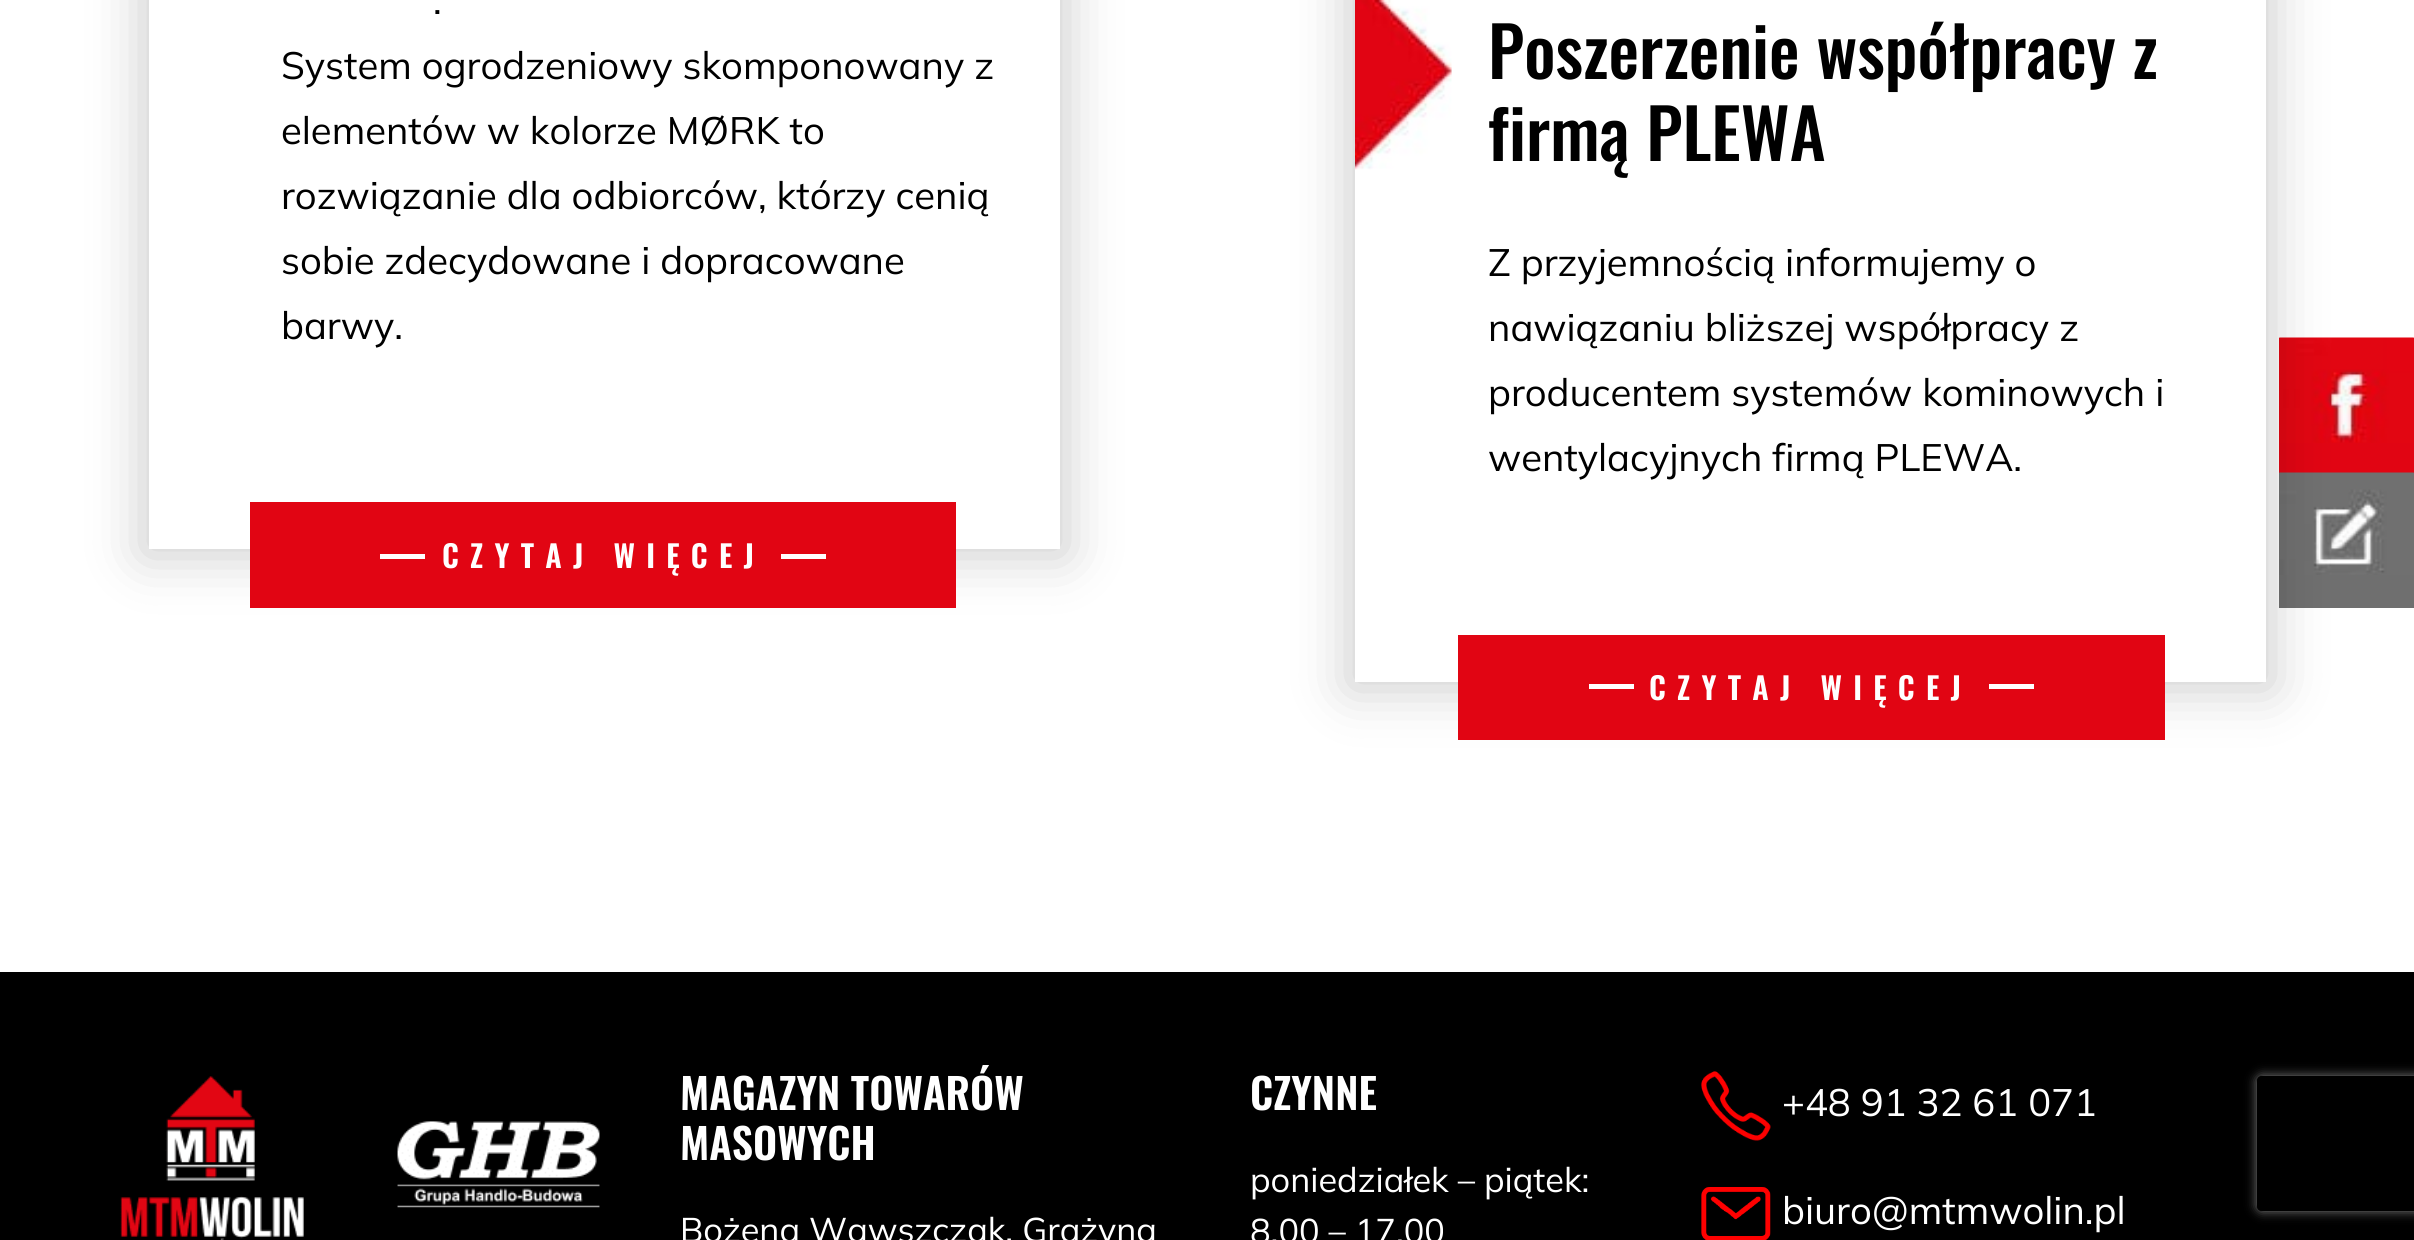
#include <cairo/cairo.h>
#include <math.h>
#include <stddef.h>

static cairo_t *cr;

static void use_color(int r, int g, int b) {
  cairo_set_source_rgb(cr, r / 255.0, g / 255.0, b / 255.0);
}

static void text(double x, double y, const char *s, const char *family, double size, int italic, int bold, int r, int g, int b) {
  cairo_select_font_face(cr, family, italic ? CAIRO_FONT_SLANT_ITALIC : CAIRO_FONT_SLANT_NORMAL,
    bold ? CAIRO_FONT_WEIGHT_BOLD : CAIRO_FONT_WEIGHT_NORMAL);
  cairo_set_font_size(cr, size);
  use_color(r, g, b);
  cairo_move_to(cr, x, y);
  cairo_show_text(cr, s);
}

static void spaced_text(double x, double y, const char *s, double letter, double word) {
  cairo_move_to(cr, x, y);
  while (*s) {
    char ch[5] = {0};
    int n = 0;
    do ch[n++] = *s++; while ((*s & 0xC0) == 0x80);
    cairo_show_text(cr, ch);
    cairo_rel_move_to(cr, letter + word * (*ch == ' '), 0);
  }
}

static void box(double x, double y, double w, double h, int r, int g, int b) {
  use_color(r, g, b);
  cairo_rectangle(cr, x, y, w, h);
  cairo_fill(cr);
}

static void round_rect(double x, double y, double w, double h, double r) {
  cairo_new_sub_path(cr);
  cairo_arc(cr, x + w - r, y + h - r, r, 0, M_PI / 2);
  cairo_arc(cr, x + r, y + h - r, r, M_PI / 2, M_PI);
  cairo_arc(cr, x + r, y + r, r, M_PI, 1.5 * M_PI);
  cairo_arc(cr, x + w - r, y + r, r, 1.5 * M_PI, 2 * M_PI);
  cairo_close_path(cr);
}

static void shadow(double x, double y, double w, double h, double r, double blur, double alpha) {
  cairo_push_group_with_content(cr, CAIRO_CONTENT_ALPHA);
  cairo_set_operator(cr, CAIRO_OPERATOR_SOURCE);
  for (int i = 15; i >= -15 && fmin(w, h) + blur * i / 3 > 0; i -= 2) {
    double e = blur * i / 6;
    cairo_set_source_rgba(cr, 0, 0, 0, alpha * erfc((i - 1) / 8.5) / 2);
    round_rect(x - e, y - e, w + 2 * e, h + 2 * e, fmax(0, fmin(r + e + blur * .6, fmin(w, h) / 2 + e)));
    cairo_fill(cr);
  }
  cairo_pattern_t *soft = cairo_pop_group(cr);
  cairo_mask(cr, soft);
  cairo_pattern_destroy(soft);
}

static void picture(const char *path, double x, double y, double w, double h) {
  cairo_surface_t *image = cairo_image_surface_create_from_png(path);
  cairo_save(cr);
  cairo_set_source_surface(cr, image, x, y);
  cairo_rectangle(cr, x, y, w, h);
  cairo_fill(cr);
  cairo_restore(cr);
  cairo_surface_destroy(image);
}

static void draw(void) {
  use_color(255, 255, 255);
  cairo_paint(cr);
  use_color(0, 0, 0);
  shadow(142, -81, 925, 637, 0, 27, 0.2);
  box(149, 0, 911, 549, 255, 255, 255);
  box(250, 502, 706, 106, 225, 5, 19);
  box(380, 554, 45, 5, 255, 255, 255);
  box(781, 554, 45, 5, 255, 255, 255);
  box(2279, 338, 135, 135, 225, 5, 19);
  picture("img_02.png", 2279, 337, 135, 106);
  box(2279, 473, 135, 135, 111, 111, 111);
  picture("img_03.png", 2279, 472, 135, 103);
  use_color(0, 0, 0);
  shadow(1348, -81, 925, 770, 0, 27, 0.2);
  box(1355, 0, 911, 682, 255, 255, 255);
  picture("img_01.png", 1355, 0, 97, 170);
  box(1458, 635, 707, 105, 225, 5, 19);
  box(1589, 684, 45, 5, 255, 255, 255);
  box(1989, 684, 45, 5, 255, 255, 255);
  box(0, 972, 2414, 268, 0, 0, 0);
  picture("img_04.png", 120, 1076, 480, 164);
  picture("img_05.png", 1701, 1071, 70, 70);
  picture("img_06.png", 1701, 1187, 70, 53);
  cairo_save(cr);
  cairo_set_fill_rule(cr, CAIRO_FILL_RULE_EVEN_ODD);
  cairo_new_path(cr);
  cairo_move_to(cr, 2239, 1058);
  cairo_line_to(cr, 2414, 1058);
  cairo_line_to(cr, 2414, 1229);
  cairo_line_to(cr, 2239, 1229);
  cairo_close_path(cr);
  cairo_move_to(cr, 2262, 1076);
  cairo_line_to(cr, 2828, 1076);
  cairo_curve_to(cr, 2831, 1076, 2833, 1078, 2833, 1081);
  cairo_line_to(cr, 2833, 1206);
  cairo_curve_to(cr, 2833, 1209, 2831, 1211, 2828, 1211);
  cairo_line_to(cr, 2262, 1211);
  cairo_curve_to(cr, 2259, 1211, 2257, 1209, 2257, 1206);
  cairo_line_to(cr, 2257, 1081);
  cairo_curve_to(cr, 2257, 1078, 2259, 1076, 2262, 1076);
  cairo_close_path(cr);
  cairo_clip(cr);
  use_color(128, 128, 128);
  shadow(2257, 1076, 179, 135, 5, 5.5, 1);
  cairo_restore(cr);
  text(433, 14, ".", "Mulish", 38.2, 0, 0, 0, 0, 0);
  text(281, 79, "System ogrodzeniowy skomponowany z", "Mulish", 38.2, 0, 0, 0, 0, 0);
  text(281, 144, "elementów w kolorze MØRK to", "Mulish", 38.2, 0, 0, 0, 0, 0);
  text(281, 209, "rozwiązanie dla odbiorców, którzy cenią", "Mulish", 38.2, 0, 0, 0, 0, 0);
  text(281, 274, "sobie zdecydowane i dopracowane", "Mulish", 38.2, 0, 0, 0, 0, 0);
  text(281, 339, "barwy.", "Mulish", 38.2, 0, 0, 0, 0, 0);
  cairo_select_font_face(cr, "Oswald SemiBold", CAIRO_FONT_SLANT_NORMAL, CAIRO_FONT_WEIGHT_NORMAL);
  cairo_set_font_size(cr, 30.5);
  use_color(255, 255, 255);
  spaced_text(442, 568, "CZYTAJ WIĘCEJ", 11.25, 0);
  text(1488, 79, "Poszerzenie współpracy z", "Oswald Medium", 68.75, 0, 0, 0, 0, 0);
  text(1488, 161, "firmą PLEWA", "Oswald Medium", 68.75, 0, 0, 0, 0, 0);
  text(1488, 276, "Z przyjemnością informujemy o", "Mulish", 38.2, 0, 0, 0, 0, 0);
  text(1488, 341, "nawiązaniu bliższej współpracy z", "Mulish", 38.2, 0, 0, 0, 0, 0);
  text(1488, 406, "producentem systemów kominowych i", "Mulish", 38.2, 0, 0, 0, 0, 0);
  text(1488, 471, "wentylacyjnych firmą PLEWA.", "Mulish", 38.2, 0, 0, 0, 0, 0);
  cairo_select_font_face(cr, "Oswald SemiBold", CAIRO_FONT_SLANT_NORMAL, CAIRO_FONT_WEIGHT_NORMAL);
  cairo_set_font_size(cr, 30.5);
  use_color(255, 255, 255);
  spaced_text(1649, 700, "CZYTAJ WIĘCEJ", 11.25, 0);
  text(680, 1110, "MAGAZYN TOWARÓW", "Oswald SemiBold", 42, 0, 0, 255, 255, 255);
  text(680, 1160, "MASOWYCH", "Oswald SemiBold", 42, 0, 0, 255, 255, 255);
  text(680, 1242, "Bożena Wawszczak, Grażyna", "Mulish", 34.3, 0, 0, 255, 255, 255);
  text(1250, 1110, "CZYNNE", "Oswald SemiBold", 42, 0, 0, 255, 255, 255);
  text(1250, 1192, "poniedziałek – piątek:", "Mulish", 34.3, 0, 0, 255, 255, 255);
  text(1250, 1243, "8.00 – 17.00", "Mulish", 34.3, 0, 0, 255, 255, 255);
  text(1782, 1116, "+48 91 32 61 071", "Mulish", 38.2, 0, 0, 255, 255, 255);
  text(1782, 1224, "biuro@mtmwolin.pl", "Mulish", 38.2, 0, 0, 255, 255, 255);
}

int main(void) {
  cairo_surface_t *surface = cairo_image_surface_create(CAIRO_FORMAT_RGB24, 2414, 1240);
  cr = cairo_create(surface);
  cairo_font_options_t *options = cairo_font_options_create();
  cairo_font_options_set_hint_metrics(options, CAIRO_HINT_METRICS_OFF);
  cairo_font_options_set_hint_style(options, CAIRO_HINT_STYLE_NONE);
  cairo_set_font_options(cr, options);
  cairo_set_miter_limit(cr, 4);
  draw();
  cairo_surface_write_to_png(surface, "out.png");
  cairo_font_options_destroy(options);
  cairo_destroy(cr);
  cairo_surface_destroy(surface);
  return 0;
}
